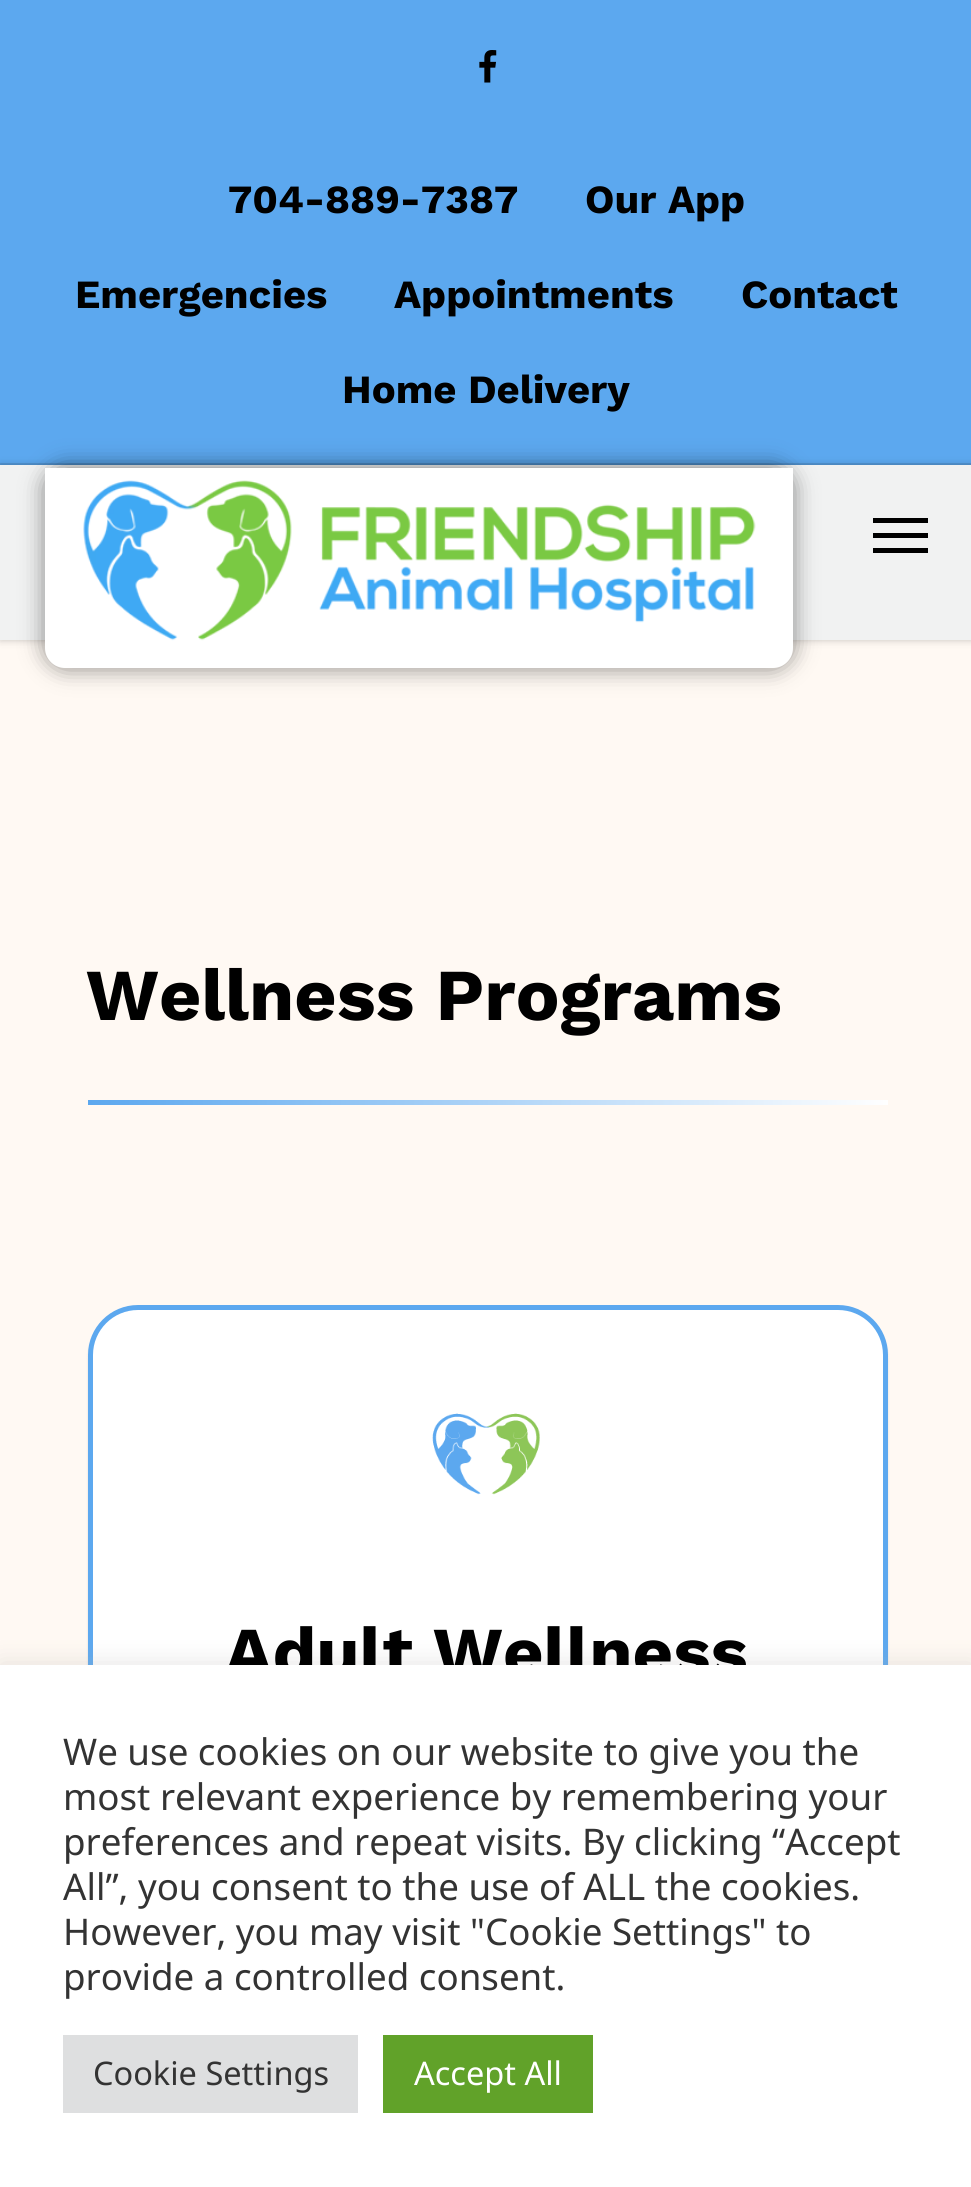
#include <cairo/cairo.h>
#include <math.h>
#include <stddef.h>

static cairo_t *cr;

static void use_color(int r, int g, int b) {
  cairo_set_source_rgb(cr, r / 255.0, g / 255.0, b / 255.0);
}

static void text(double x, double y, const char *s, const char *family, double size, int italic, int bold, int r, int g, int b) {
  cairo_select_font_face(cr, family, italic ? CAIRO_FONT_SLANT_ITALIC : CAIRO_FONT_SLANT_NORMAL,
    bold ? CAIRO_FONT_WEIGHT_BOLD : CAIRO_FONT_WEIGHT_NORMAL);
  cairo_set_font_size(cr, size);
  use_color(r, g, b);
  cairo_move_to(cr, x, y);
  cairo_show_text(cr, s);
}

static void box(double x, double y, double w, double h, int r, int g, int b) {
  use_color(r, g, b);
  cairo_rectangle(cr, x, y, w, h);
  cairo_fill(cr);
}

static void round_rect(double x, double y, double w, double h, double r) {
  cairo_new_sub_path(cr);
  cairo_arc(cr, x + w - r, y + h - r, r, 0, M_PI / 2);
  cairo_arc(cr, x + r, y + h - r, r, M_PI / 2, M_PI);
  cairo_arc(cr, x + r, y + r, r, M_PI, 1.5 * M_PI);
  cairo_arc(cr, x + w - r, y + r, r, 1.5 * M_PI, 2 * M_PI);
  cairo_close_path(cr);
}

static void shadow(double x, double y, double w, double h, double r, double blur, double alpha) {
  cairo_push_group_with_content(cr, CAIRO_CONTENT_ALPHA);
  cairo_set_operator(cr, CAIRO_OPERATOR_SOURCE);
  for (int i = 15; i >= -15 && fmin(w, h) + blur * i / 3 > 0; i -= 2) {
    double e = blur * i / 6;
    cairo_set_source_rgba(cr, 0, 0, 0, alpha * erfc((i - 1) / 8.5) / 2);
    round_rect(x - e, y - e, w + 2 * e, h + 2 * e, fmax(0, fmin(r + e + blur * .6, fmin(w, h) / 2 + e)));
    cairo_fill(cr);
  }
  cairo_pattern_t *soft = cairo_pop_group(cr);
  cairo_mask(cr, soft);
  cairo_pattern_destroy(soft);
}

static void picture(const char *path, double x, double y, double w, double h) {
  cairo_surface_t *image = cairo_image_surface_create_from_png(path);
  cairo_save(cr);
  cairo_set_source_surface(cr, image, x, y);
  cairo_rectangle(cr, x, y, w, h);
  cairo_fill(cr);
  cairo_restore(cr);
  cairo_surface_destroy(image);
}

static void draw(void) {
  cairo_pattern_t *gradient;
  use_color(255, 249, 243);
  cairo_paint(cr);
  box(0, 0, 971, 463, 92, 168, 239);
  box(0, 463, 971, 2, 83, 151, 215);
  picture("img_01.png", 479, 50, 18, 33);
  use_color(0, 0, 0);
  shadow(0, 465, 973, 175, 0, 4, 0.22);
  box(0, 465, 971, 175, 241, 242, 242);
  use_color(0, 0, 0);
  shadow(43, 465, 752, 205, 23, 11, 0.4);
  use_color(255, 255, 255);
  cairo_new_path(cr);
  cairo_move_to(cr, 45, 468);
  cairo_line_to(cr, 793, 468);
  cairo_line_to(cr, 793, 648);
  cairo_curve_to(cr, 793, 659, 784, 668, 773, 668);
  cairo_line_to(cr, 65, 668);
  cairo_curve_to(cr, 54, 668, 45, 659, 45, 648);
  cairo_close_path(cr);
  cairo_fill(cr);
  picture("img_02.png", 83, 480, 673, 161);
  box(873, 518, 55, 5, 0, 0, 0);
  box(873, 548, 55, 5, 0, 0, 0);
  box(873, 533, 55, 5, 0, 0, 0);
  gradient = cairo_pattern_create_linear(88, 1103, 888, 1103);
  cairo_pattern_add_color_stop_rgba(gradient, 0, 0.361, 0.659, 0.937, 1);
  cairo_pattern_add_color_stop_rgba(gradient, 1, 1, 1, 1, 1);
  cairo_set_source(cr, gradient);
  cairo_pattern_destroy(gradient);
  cairo_rectangle(cr, 88, 1100, 800, 5);
  cairo_fill(cr);
  use_color(0, 0, 0);
  shadow(88, 1308, 800, 715, 50, 1, 0.1);
  use_color(255, 255, 255);
  round_rect(90.5, 1307.5, 795, 710, 47.5);
  cairo_fill_preserve(cr);
  use_color(92, 168, 239);
  cairo_set_line_width(cr, 5);
  cairo_stroke(cr);
  picture("img_03.png", 432, 1413, 108, 82);
  use_color(172, 171, 171);
  shadow(0, 1663, 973, 522, 0, 12.5, 0.3);
  text(228, 213, "704-889-7387", "Work Sans", 40, 0, 1, 0, 0, 0);
  text(585, 213, "Our App", "Work Sans", 40, 0, 1, 0, 0, 0);
  text(75, 308, "Emergencies", "Work Sans", 40, 0, 1, 0, 0, 0);
  text(394, 308, "Appointments", "Work Sans", 40, 0, 1, 0, 0, 0);
  text(741, 308, "Contact", "Work Sans", 40, 0, 1, 0, 0, 0);
  text(342, 403, "Home Delivery", "Work Sans", 40, 0, 1, 0, 0, 0);
  text(86, 1020, "Wellness Programs", "Work Sans", 73.1, 0, 1, 0, 0, 0);
  text(225, 1676, "Adult Wellness", "Work Sans", 70, 0, 1, 0, 0, 0);
  box(0, 1665, 971, 522, 255, 255, 255);
  text(63, 1765, "We use cookies on our website to give you the", "Noto Sans", 36.7, 0, 0, 51, 51, 51);
  text(63, 1810, "most relevant experience by remembering your", "Noto Sans", 36.7, 0, 0, 51, 51, 51);
  text(63, 1855, "preferences and repeat visits. By clicking “Accept", "Noto Sans", 36.7, 0, 0, 51, 51, 51);
  text(63, 1900, "All”, you consent to the use of ALL the cookies.", "Noto Sans", 36.7, 0, 0, 51, 51, 51);
  text(63, 1945, "However, you may visit \"Cookie Settings\" to", "Noto Sans", 36.7, 0, 0, 51, 51, 51);
  text(63, 1990, "provide a controlled consent.", "Noto Sans", 36.7, 0, 0, 51, 51, 51);
  box(63, 2035, 295, 78, 222, 223, 224);
  text(93, 2085, "Cookie Settings", "Noto Sans", 32.5, 0, 0, 51, 51, 51);
  box(383, 2035, 210, 78, 97, 162, 41);
  text(414, 2085, "Accept All", "Noto Sans", 32.5, 0, 0, 255, 255, 255);
}

int main(void) {
  cairo_surface_t *surface = cairo_image_surface_create(CAIRO_FORMAT_RGB24, 971, 2187);
  cr = cairo_create(surface);
  cairo_font_options_t *options = cairo_font_options_create();
  cairo_font_options_set_hint_metrics(options, CAIRO_HINT_METRICS_OFF);
  cairo_font_options_set_hint_style(options, CAIRO_HINT_STYLE_NONE);
  cairo_set_font_options(cr, options);
  cairo_set_miter_limit(cr, 4);
  draw();
  cairo_surface_write_to_png(surface, "out.png");
  cairo_font_options_destroy(options);
  cairo_destroy(cr);
  cairo_surface_destroy(surface);
  return 0;
}
